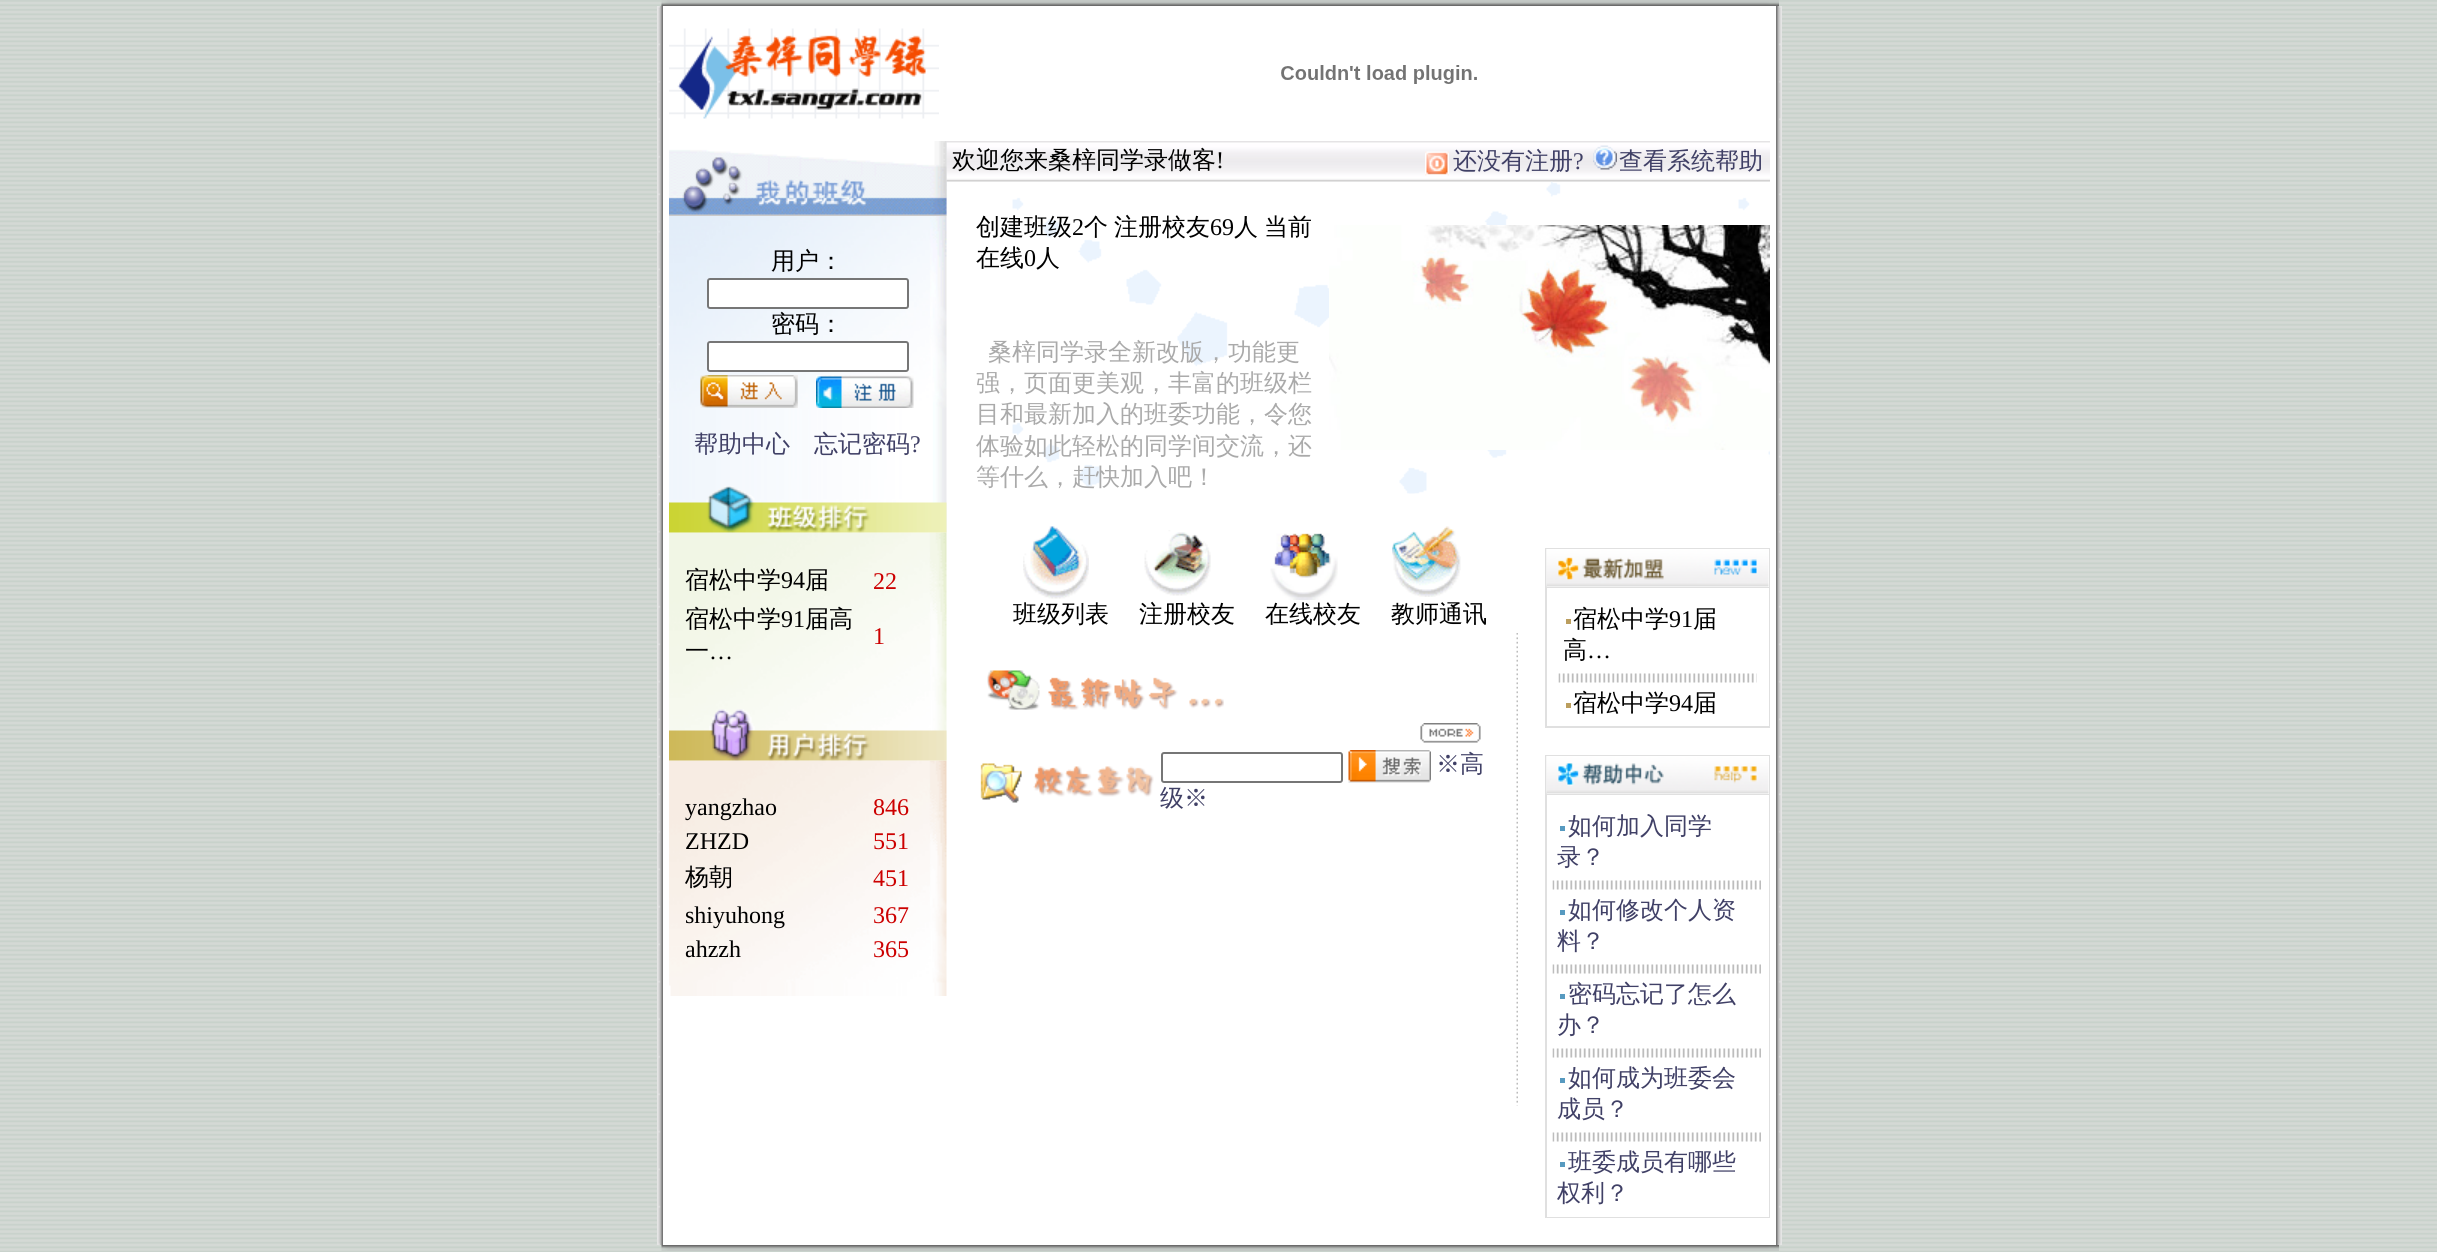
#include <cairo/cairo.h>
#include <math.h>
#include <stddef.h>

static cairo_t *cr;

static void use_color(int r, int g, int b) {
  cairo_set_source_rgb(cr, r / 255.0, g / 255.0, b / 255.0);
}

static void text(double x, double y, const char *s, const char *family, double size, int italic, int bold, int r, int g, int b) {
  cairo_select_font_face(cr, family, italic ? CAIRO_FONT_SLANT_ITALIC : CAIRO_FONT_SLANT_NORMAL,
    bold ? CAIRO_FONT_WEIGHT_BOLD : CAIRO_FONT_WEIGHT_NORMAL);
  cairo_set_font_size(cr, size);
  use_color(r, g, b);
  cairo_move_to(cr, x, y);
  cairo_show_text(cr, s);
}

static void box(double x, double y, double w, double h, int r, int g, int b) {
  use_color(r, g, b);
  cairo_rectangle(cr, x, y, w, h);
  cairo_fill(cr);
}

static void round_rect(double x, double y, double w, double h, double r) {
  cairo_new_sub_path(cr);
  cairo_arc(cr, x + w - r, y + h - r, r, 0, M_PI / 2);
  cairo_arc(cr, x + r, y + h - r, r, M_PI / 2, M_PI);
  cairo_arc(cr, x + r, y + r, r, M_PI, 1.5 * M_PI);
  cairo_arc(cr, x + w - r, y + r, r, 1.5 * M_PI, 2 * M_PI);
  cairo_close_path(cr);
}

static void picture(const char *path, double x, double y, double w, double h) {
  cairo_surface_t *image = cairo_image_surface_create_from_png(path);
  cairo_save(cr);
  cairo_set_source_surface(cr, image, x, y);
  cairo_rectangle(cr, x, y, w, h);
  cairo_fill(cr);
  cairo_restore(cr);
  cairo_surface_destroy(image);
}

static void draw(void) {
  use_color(255, 255, 255);
  cairo_paint(cr);
  picture("img_01.png", 0, 0, 2437, 1252);
  picture("img_02.png", 661, 0, 1118, 6);
  box(663, 6, 1113, 1239, 255, 255, 255);
  picture("img_03.png", 657, 6, 6, 1239);
  picture("img_04.png", 669, 28, 270, 91);
  picture("img_05.png", 1281, 65, 196, 19);
  picture("img_06.png", 669, 141, 278, 392);
  picture("img_14.png", 946, 141, 824, 41);
  picture("img_07.png", 669, 141, 278, 75);
  round_rect(708, 279, 200, 29, 2);
  cairo_fill_preserve(cr);
  use_color(118, 118, 118);
  cairo_stroke(cr);
  use_color(255, 255, 255);
  round_rect(708, 342, 200, 29, 2);
  cairo_fill_preserve(cr);
  use_color(118, 118, 118);
  cairo_stroke(cr);
  picture("img_08.png", 700, 375, 98, 33);
  picture("img_09.png", 816, 375, 98, 33);
  picture("img_11.png", 669, 532, 278, 229);
  picture("img_10.png", 669, 486, 278, 47);
  picture("img_13.png", 669, 760, 278, 236);
  picture("img_12.png", 669, 709, 278, 52);
  picture("img_15.png", 1425, 151, 24, 25);
  picture("img_16.png", 1593, 145, 24, 25);
  picture("img_17.png", 1012, 181, 758, 313);
  picture("img_18.png", 1329, 225, 441, 225);
  picture("img_19.png", 1023, 526, 66, 73);
  picture("img_20.png", 1144, 530, 67, 66);
  picture("img_21.png", 1270, 533, 68, 67);
  picture("img_22.png", 1392, 526, 69, 71);
  picture("img_23.png", 987, 670, 237, 40);
  picture("img_24.png", 1420, 723, 61, 20);
  picture("img_25.png", 980, 763, 174, 40);
  round_rect(1162, 753, 180, 29, 2);
  cairo_stroke(cr);
  picture("img_26.png", 1348, 750, 83, 33);
  picture("img_27.png", 1516, 633, 2, 473);
  box(1545, 548, 225, 180, 224, 224, 224);
  box(1547, 549, 222, 38, 255, 255, 255);
  picture("img_28.png", 1546, 549, 223, 38);
  box(1547, 588, 222, 138, 255, 255, 255);
  box(1566, 619, 5, 5, 187, 158, 94);
  picture("img_29.png", 1558, 673, 199, 10);
  box(1566, 703, 5, 5, 187, 158, 94);
  box(1545, 755, 225, 463, 224, 224, 224);
  box(1547, 756, 222, 38, 255, 255, 255);
  picture("img_30.png", 1546, 756, 223, 38);
  box(1547, 795, 222, 422, 255, 255, 255);
  box(1560, 826, 5, 5, 87, 154, 192);
  picture("img_31.png", 1552, 880, 209, 10);
  box(1560, 910, 5, 5, 87, 154, 192);
  picture("img_31.png", 1552, 964, 209, 10);
  box(1560, 994, 5, 5, 87, 154, 192);
  picture("img_31.png", 1552, 1048, 209, 10);
  box(1560, 1078, 5, 5, 87, 154, 192);
  picture("img_31.png", 1552, 1132, 209, 10);
  box(1560, 1162, 5, 5, 87, 154, 192);
  picture("img_32.png", 1776, 6, 6, 1239);
  picture("img_33.png", 661, 1245, 1118, 6);
  text(771, 269, "用户：", "WenQuanYi Zen Hei Medium", 24, 0, 0, 0, 0, 0);
  text(771, 332, "密码：", "WenQuanYi Zen Hei Medium", 24, 0, 0, 0, 0, 0);
  text(694, 452, "帮助中心", "WenQuanYi Zen Hei Medium", 24, 0, 0, 64, 64, 102);
  text(814, 452, "忘记密码", "WenQuanYi Zen Hei Medium", 24, 0, 0, 64, 64, 102);
  text(910, 452, "?", "Liberation Serif", 24, 0, 0, 64, 64, 102);
  text(685, 588, "宿松中学", "WenQuanYi Zen Hei Medium", 24, 0, 0, 0, 0, 0);
  text(781, 588, "94", "Liberation Serif", 24, 0, 0, 0, 0, 0);
  text(805, 588, "届", "WenQuanYi Zen Hei Medium", 24, 0, 0, 0, 0, 0);
  text(873, 589, "22", "Liberation Serif", 24, 0, 0, 204, 0, 0);
  text(685, 627, "宿松中学", "WenQuanYi Zen Hei Medium", 24, 0, 0, 0, 0, 0);
  text(781, 627, "91", "Liberation Serif", 24, 0, 0, 0, 0, 0);
  text(805, 627, "届高", "WenQuanYi Zen Hei Medium", 24, 0, 0, 0, 0, 0);
  text(685, 659, "一", "WenQuanYi Zen Hei Medium", 24, 0, 0, 0, 0, 0);
  text(709, 659, "…", "Liberation Serif", 24, 0, 0, 0, 0, 0);
  text(873, 644, "1", "Liberation Serif", 24, 0, 0, 204, 0, 0);
  text(685, 815, "yangzhao", "Liberation Serif", 24, 0, 0, 0, 0, 0);
  text(873, 815, "846", "Liberation Serif", 24, 0, 0, 204, 0, 0);
  text(685, 849, "ZHZD", "Liberation Serif", 24, 0, 0, 0, 0, 0);
  text(873, 849, "551", "Liberation Serif", 24, 0, 0, 204, 0, 0);
  text(685, 885, "杨朝", "WenQuanYi Zen Hei Medium", 24, 0, 0, 0, 0, 0);
  text(873, 886, "451", "Liberation Serif", 24, 0, 0, 204, 0, 0);
  text(685, 923, "shiyuhong", "Liberation Serif", 24, 0, 0, 0, 0, 0);
  text(873, 923, "367", "Liberation Serif", 24, 0, 0, 204, 0, 0);
  text(685, 957, "ahzzh", "Liberation Serif", 24, 0, 0, 0, 0, 0);
  text(873, 957, "365", "Liberation Serif", 24, 0, 0, 204, 0, 0);
  text(952, 168, "欢迎您来桑梓同学录做客", "WenQuanYi Zen Hei Medium", 24, 0, 0, 0, 0, 0);
  text(1216, 168, "!", "Liberation Serif", 24, 0, 0, 0, 0, 0);
  text(1453, 169, "还没有注册", "WenQuanYi Zen Hei Medium", 24, 0, 0, 64, 64, 102);
  text(1573, 169, "?", "Liberation Serif", 24, 0, 0, 64, 64, 102);
  text(1619, 169, "查看系统帮助", "WenQuanYi Zen Hei Medium", 24, 0, 0, 64, 64, 102);
  text(976, 235, "创建班级", "WenQuanYi Zen Hei Medium", 24, 0, 0, 0, 0, 0);
  text(1072, 235, "2", "Liberation Serif", 24, 0, 0, 0, 0, 0);
  text(1084, 235, "个", "WenQuanYi Zen Hei Medium", 24, 0, 0, 0, 0, 0);
  text(1114, 235, "注册校友", "WenQuanYi Zen Hei Medium", 24, 0, 0, 0, 0, 0);
  text(1210, 235, "69", "Liberation Serif", 24, 0, 0, 0, 0, 0);
  text(1234, 235, "人", "WenQuanYi Zen Hei Medium", 24, 0, 0, 0, 0, 0);
  text(1264, 235, "当前", "WenQuanYi Zen Hei Medium", 24, 0, 0, 0, 0, 0);
  text(976, 266, "在线", "WenQuanYi Zen Hei Medium", 24, 0, 0, 0, 0, 0);
  text(1024, 266, "0", "Liberation Serif", 24, 0, 0, 0, 0, 0);
  text(1036, 266, "人", "WenQuanYi Zen Hei Medium", 24, 0, 0, 0, 0, 0);
  text(988, 360, "桑梓同学录全新改版，功能更", "WenQuanYi Zen Hei Medium", 24, 0, 0, 170, 170, 170);
  text(976, 391, "强，页面更美观，丰富的班级栏", "WenQuanYi Zen Hei Medium", 24, 0, 0, 170, 170, 170);
  text(976, 422, "目和最新加入的班委功能，令您", "WenQuanYi Zen Hei Medium", 24, 0, 0, 170, 170, 170);
  text(976, 454, "体验如此轻松的同学间交流，还", "WenQuanYi Zen Hei Medium", 24, 0, 0, 170, 170, 170);
  text(976, 485, "等什么，赶快加入吧！", "WenQuanYi Zen Hei Medium", 24, 0, 0, 170, 170, 170);
  text(1013, 622, "班级列表", "WenQuanYi Zen Hei Medium", 24, 0, 0, 0, 0, 0);
  text(1139, 622, "注册校友", "WenQuanYi Zen Hei Medium", 24, 0, 0, 0, 0, 0);
  text(1265, 622, "在线校友", "WenQuanYi Zen Hei Medium", 24, 0, 0, 0, 0, 0);
  text(1391, 622, "教师通讯", "WenQuanYi Zen Hei Medium", 24, 0, 0, 0, 0, 0);
  text(1436, 772, "※高", "WenQuanYi Zen Hei Medium", 24, 0, 0, 64, 64, 102);
  text(1160, 806, "级※", "WenQuanYi Zen Hei Medium", 24, 0, 0, 64, 64, 102);
  text(1573, 627, "宿松中学", "WenQuanYi Zen Hei Medium", 24, 0, 0, 0, 0, 0);
  text(1669, 627, "91", "Liberation Serif", 24, 0, 0, 0, 0, 0);
  text(1693, 627, "届", "WenQuanYi Zen Hei Medium", 24, 0, 0, 0, 0, 0);
  text(1563, 658, "高", "WenQuanYi Zen Hei Medium", 24, 0, 0, 0, 0, 0);
  text(1587, 658, "…", "Liberation Serif", 24, 0, 0, 0, 0, 0);
  text(1573, 711, "宿松中学", "WenQuanYi Zen Hei Medium", 24, 0, 0, 0, 0, 0);
  text(1669, 711, "94", "Liberation Serif", 24, 0, 0, 0, 0, 0);
  text(1693, 711, "届", "WenQuanYi Zen Hei Medium", 24, 0, 0, 0, 0, 0);
  text(1568, 834, "如何加入同学", "WenQuanYi Zen Hei Medium", 24, 0, 0, 64, 64, 102);
  text(1557, 865, "录？", "WenQuanYi Zen Hei Medium", 24, 0, 0, 64, 64, 102);
  text(1568, 918, "如何修改个人资", "WenQuanYi Zen Hei Medium", 24, 0, 0, 64, 64, 102);
  text(1557, 949, "料？", "WenQuanYi Zen Hei Medium", 24, 0, 0, 64, 64, 102);
  text(1568, 1002, "密码忘记了怎么", "WenQuanYi Zen Hei Medium", 24, 0, 0, 64, 64, 102);
  text(1557, 1033, "办？", "WenQuanYi Zen Hei Medium", 24, 0, 0, 64, 64, 102);
  text(1568, 1086, "如何成为班委会", "WenQuanYi Zen Hei Medium", 24, 0, 0, 64, 64, 102);
  text(1557, 1117, "成员？", "WenQuanYi Zen Hei Medium", 24, 0, 0, 64, 64, 102);
  text(1568, 1170, "班委成员有哪些", "WenQuanYi Zen Hei Medium", 24, 0, 0, 64, 64, 102);
  text(1557, 1201, "权利？", "WenQuanYi Zen Hei Medium", 24, 0, 0, 64, 64, 102);
}

int main(void) {
  cairo_surface_t *surface = cairo_image_surface_create(CAIRO_FORMAT_RGB24, 2437, 1252);
  cr = cairo_create(surface);
  cairo_font_options_t *options = cairo_font_options_create();
  cairo_font_options_set_hint_metrics(options, CAIRO_HINT_METRICS_OFF);
  cairo_font_options_set_hint_style(options, CAIRO_HINT_STYLE_NONE);
  cairo_set_font_options(cr, options);
  cairo_set_miter_limit(cr, 4);
  draw();
  cairo_surface_write_to_png(surface, "out.png");
  cairo_font_options_destroy(options);
  cairo_destroy(cr);
  cairo_surface_destroy(surface);
  return 0;
}
